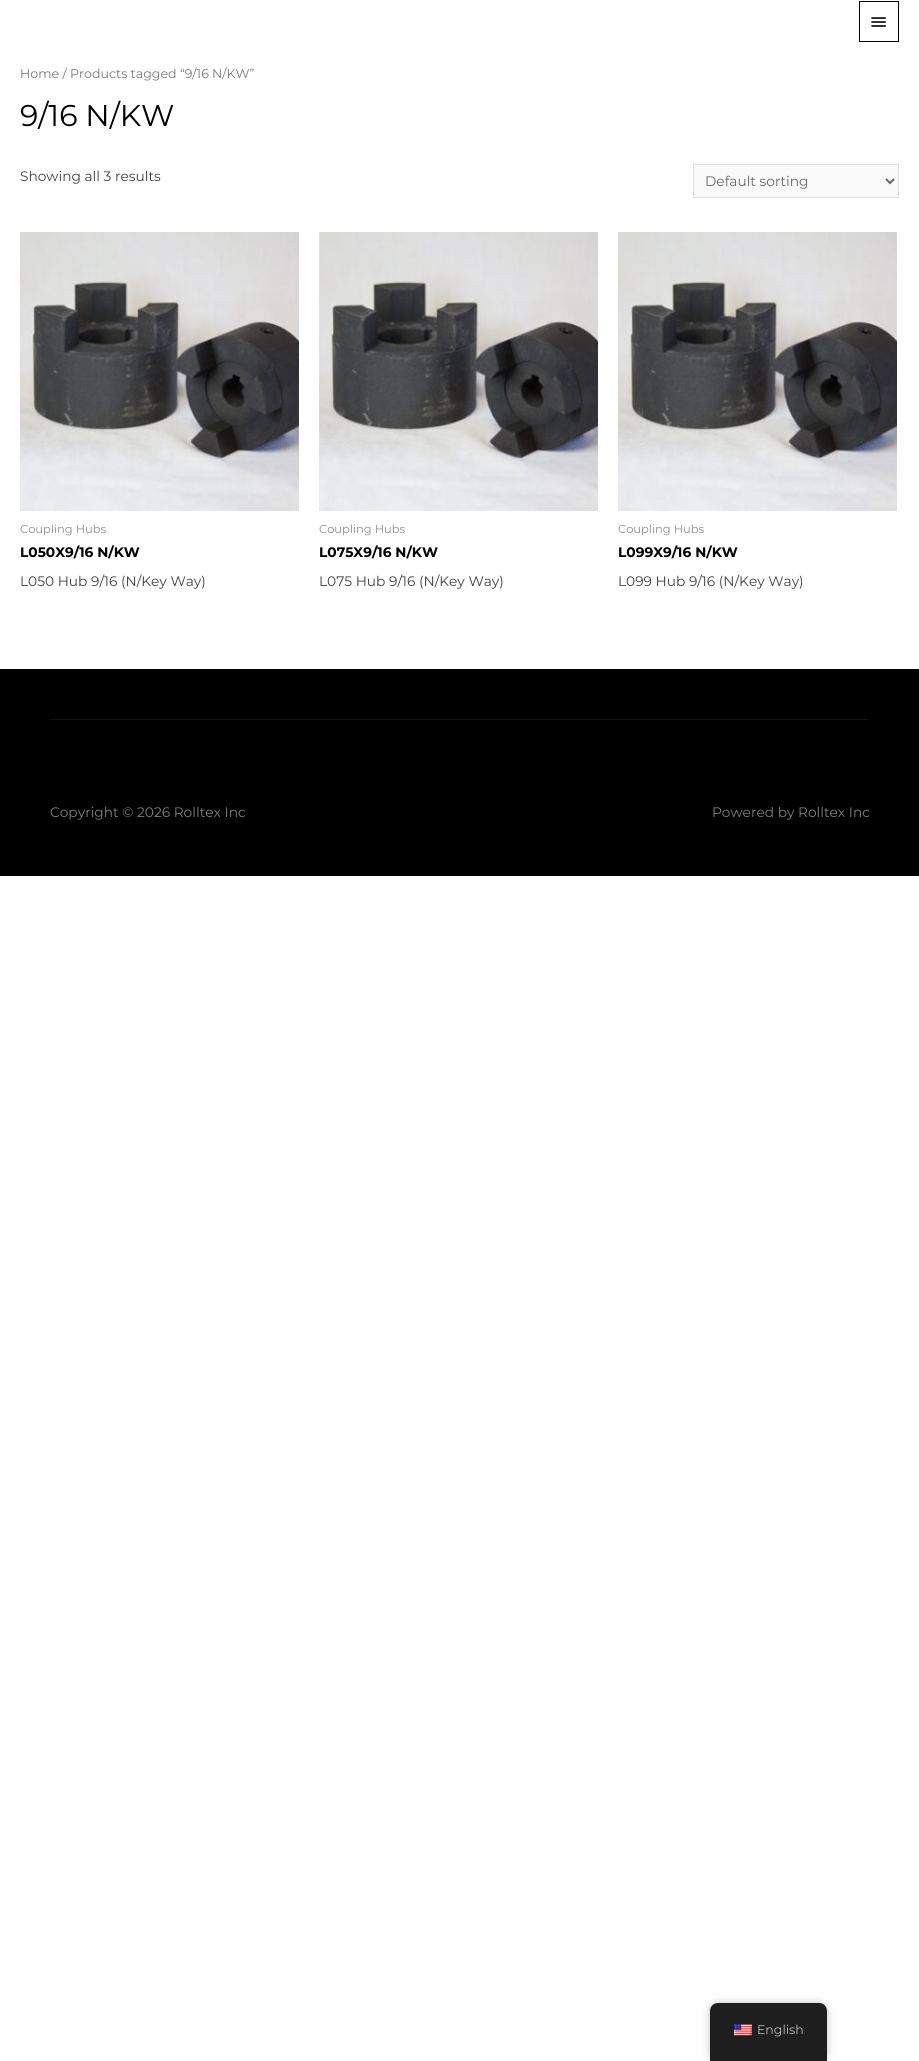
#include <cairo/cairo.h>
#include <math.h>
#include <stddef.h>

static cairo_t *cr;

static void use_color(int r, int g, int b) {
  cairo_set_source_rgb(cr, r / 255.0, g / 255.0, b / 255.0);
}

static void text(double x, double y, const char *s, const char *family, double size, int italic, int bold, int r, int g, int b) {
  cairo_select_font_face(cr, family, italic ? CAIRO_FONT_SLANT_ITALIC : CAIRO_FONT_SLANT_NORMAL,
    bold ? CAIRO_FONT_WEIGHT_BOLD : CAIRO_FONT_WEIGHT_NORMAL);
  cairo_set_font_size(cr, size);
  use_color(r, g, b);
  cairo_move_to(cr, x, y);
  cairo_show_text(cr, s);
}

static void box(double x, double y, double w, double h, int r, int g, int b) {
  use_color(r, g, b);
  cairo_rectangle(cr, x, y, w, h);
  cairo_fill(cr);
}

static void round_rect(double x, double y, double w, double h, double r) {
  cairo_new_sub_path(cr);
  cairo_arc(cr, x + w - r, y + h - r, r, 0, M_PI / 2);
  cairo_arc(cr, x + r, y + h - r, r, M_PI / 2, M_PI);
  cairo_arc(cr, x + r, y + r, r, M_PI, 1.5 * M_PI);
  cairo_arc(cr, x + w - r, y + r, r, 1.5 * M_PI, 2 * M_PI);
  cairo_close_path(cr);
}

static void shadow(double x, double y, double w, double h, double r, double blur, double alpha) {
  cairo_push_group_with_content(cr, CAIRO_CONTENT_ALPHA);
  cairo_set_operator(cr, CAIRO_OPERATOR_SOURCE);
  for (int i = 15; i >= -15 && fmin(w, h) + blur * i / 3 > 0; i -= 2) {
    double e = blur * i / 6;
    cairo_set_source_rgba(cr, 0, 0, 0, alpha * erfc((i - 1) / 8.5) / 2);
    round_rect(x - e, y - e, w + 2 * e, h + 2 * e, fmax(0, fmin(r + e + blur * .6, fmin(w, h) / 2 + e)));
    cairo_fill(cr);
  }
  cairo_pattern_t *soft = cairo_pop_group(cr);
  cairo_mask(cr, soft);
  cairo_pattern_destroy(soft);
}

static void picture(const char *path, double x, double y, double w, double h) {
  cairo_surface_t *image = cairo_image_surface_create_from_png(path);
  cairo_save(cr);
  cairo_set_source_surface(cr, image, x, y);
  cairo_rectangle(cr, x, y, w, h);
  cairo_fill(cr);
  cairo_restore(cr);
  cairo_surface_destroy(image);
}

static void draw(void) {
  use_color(255, 255, 255);
  cairo_paint(cr);
  cairo_rectangle(cr, 859.5, 1.5, 39, 40);
  use_color(0, 0, 0);
  cairo_set_line_width(cr, 1);
  cairo_stroke(cr);
  picture("img_01.png", 871, 17, 15, 10);
  use_color(250, 250, 250);
  cairo_rectangle(cr, 693.5, 164.5, 205, 33);
  cairo_fill_preserve(cr);
  use_color(221, 221, 221);
  cairo_stroke(cr);
  cairo_new_path(cr);
  cairo_move_to(cr, 886, 179);
  cairo_line_to(cr, 890, 183);
  cairo_line_to(cr, 894, 179);
  use_color(102, 102, 102);
  cairo_set_line_width(cr, 2);
  cairo_stroke(cr);
  picture("img_02.png", 20, 232, 279, 279);
  picture("img_03.png", 319, 232, 279, 279);
  picture("img_02.png", 618, 232, 279, 279);
  box(0, 669, 919, 207, 0, 0, 0);
  box(50, 719, 819, 1, 16, 16, 16);
  use_color(0, 0, 0);
  shadow(710, 2003, 117, 58, 8, 4, 0.25);
  use_color(30, 30, 30);
  cairo_new_path(cr);
  cairo_move_to(cr, 718, 2003);
  cairo_line_to(cr, 819, 2003);
  cairo_curve_to(cr, 823.5, 2003, 827, 2006.5, 827, 2011);
  cairo_line_to(cr, 827, 2061);
  cairo_line_to(cr, 710, 2061);
  cairo_line_to(cr, 710, 2011);
  cairo_curve_to(cr, 710, 2006.5, 713.5, 2003, 718, 2003);
  cairo_close_path(cr);
  cairo_fill(cr);
  picture("img_04.png", 734, 2024, 18, 12);
  text(20, 78, "Home / Products tagged “9/16 N/KW”", "Montserrat", 12.6, 0, 0, 119, 119, 119);
  text(20, 126, "9/16 N/KW", "Montserrat", 30, 0, 0, 0, 0, 0);
  text(20, 181, "Showing all 3 results", "Montserrat", 13.75, 0, 0, 64, 64, 64);
  text(705, 186, "Default sorting", "Montserrat", 13.75, 0, 0, 102, 102, 102);
  text(20, 533, "Coupling Hubs", "Montserrat", 11.5, 0, 0, 140, 140, 140);
  text(20, 557, "L050X9/16 N/KW", "Montserrat", 13.75, 0, 1, 0, 0, 0);
  text(20, 586, "L050 Hub 9/16 (N/Key Way)", "Montserrat", 13.75, 0, 0, 64, 64, 64);
  text(319, 533, "Coupling Hubs", "Montserrat", 11.5, 0, 0, 140, 140, 140);
  text(319, 557, "L075X9/16 N/KW", "Montserrat", 13.75, 0, 1, 0, 0, 0);
  text(319, 586, "L075 Hub 9/16 (N/Key Way)", "Montserrat", 13.75, 0, 0, 64, 64, 64);
  text(618, 533, "Coupling Hubs", "Montserrat", 11.5, 0, 0, 140, 140, 140);
  text(618, 557, "L099X9/16 N/KW", "Montserrat", 13.75, 0, 1, 0, 0, 0);
  text(618, 586, "L099 Hub 9/16 (N/Key Way)", "Montserrat", 13.75, 0, 0, 64, 64, 64);
  text(50, 817, "Copyright © 2026 Rolltex Inc", "Montserrat", 13.75, 0, 0, 128, 128, 128);
  text(712, 817, "Powered by Rolltex Inc", "Montserrat", 13.75, 0, 0, 128, 128, 128);
  text(757, 2034, "English", "Montserrat", 12.5, 0, 0, 189, 189, 189);
}

int main(void) {
  cairo_surface_t *surface = cairo_image_surface_create(CAIRO_FORMAT_RGB24, 919, 2061);
  cr = cairo_create(surface);
  cairo_font_options_t *options = cairo_font_options_create();
  cairo_font_options_set_hint_metrics(options, CAIRO_HINT_METRICS_OFF);
  cairo_font_options_set_hint_style(options, CAIRO_HINT_STYLE_NONE);
  cairo_set_font_options(cr, options);
  cairo_set_miter_limit(cr, 4);
  draw();
  cairo_surface_write_to_png(surface, "out.png");
  cairo_font_options_destroy(options);
  cairo_destroy(cr);
  cairo_surface_destroy(surface);
  return 0;
}
